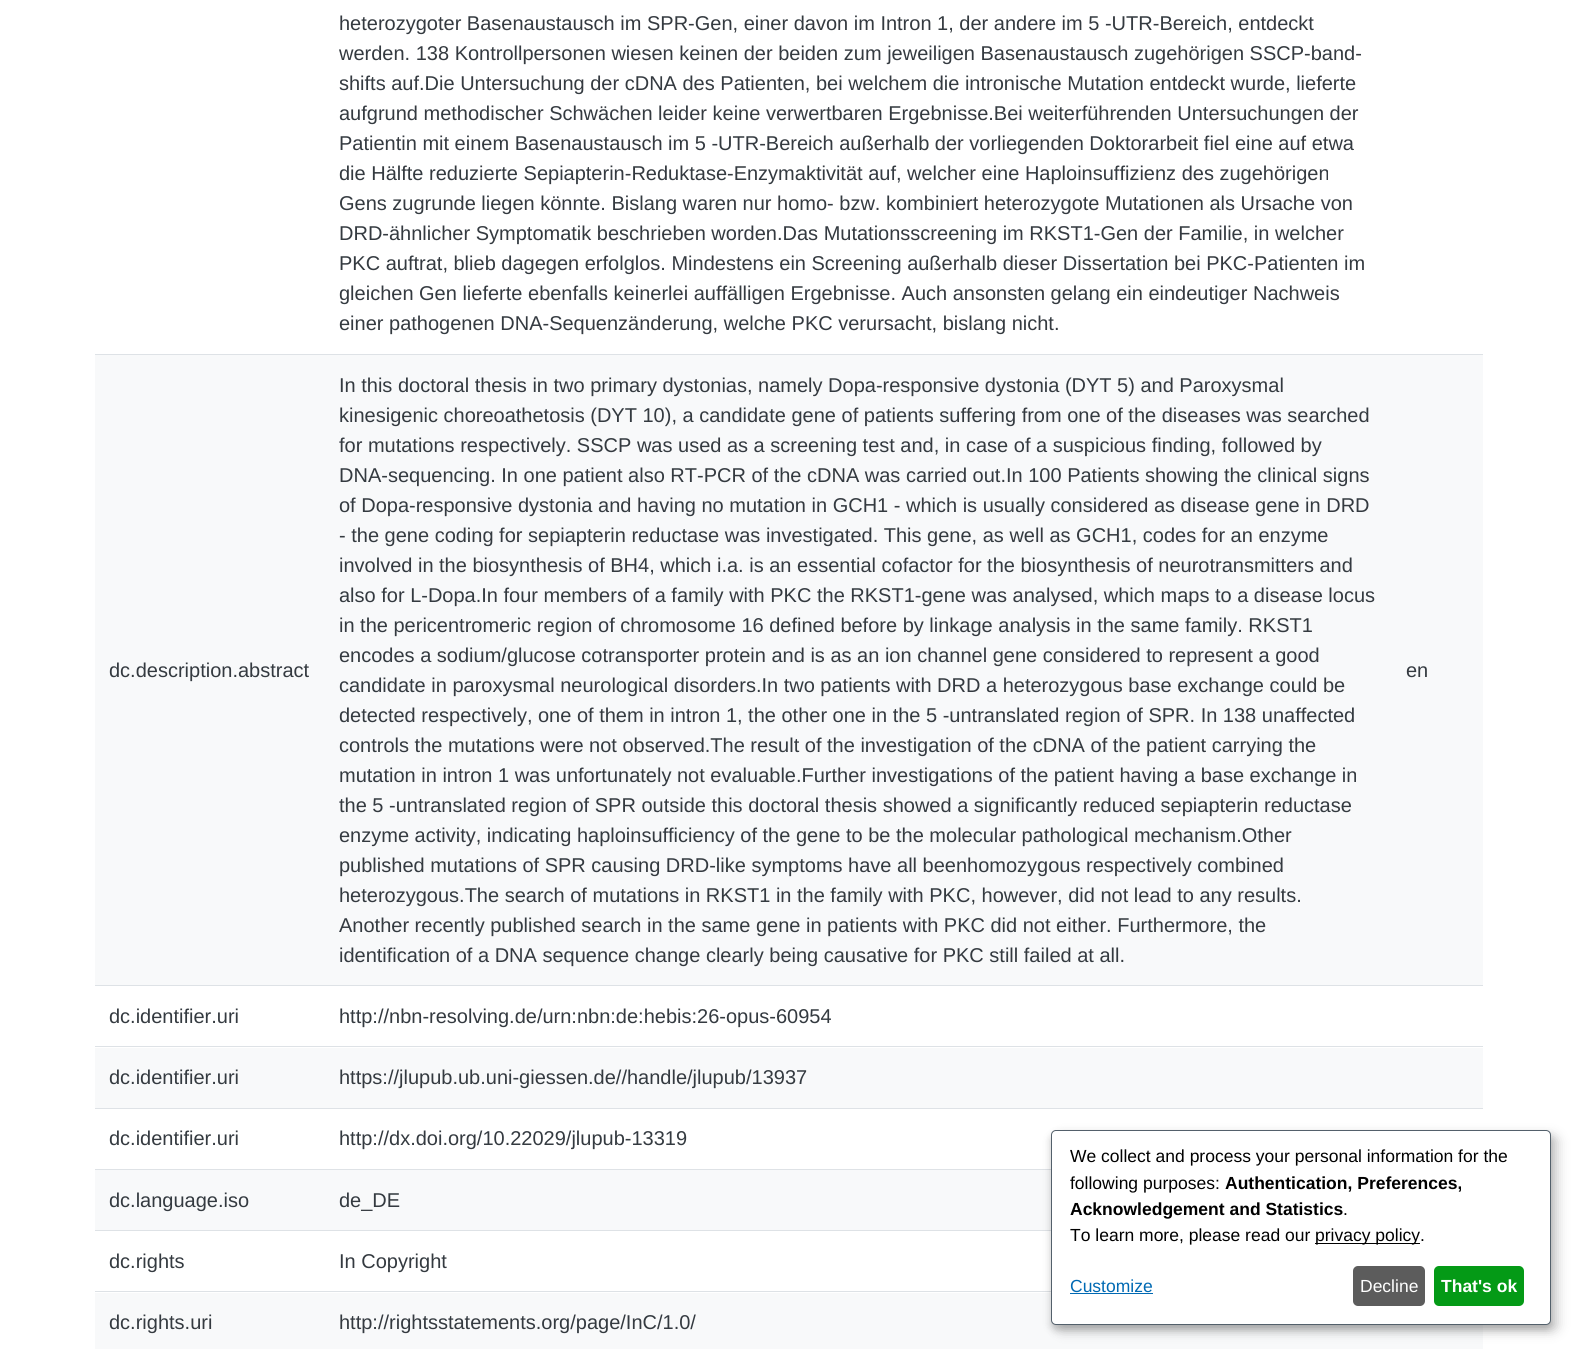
#include <cairo/cairo.h>
#include <math.h>
#include <stddef.h>

static cairo_t *cr;

static void use_color(int r, int g, int b) {
  cairo_set_source_rgb(cr, r / 255.0, g / 255.0, b / 255.0);
}

static void text(double x, double y, const char *s, const char *family, double size, int italic, int bold, int r, int g, int b) {
  cairo_select_font_face(cr, family, italic ? CAIRO_FONT_SLANT_ITALIC : CAIRO_FONT_SLANT_NORMAL,
    bold ? CAIRO_FONT_WEIGHT_BOLD : CAIRO_FONT_WEIGHT_NORMAL);
  cairo_set_font_size(cr, size);
  use_color(r, g, b);
  cairo_move_to(cr, x, y);
  cairo_show_text(cr, s);
}

static void box(double x, double y, double w, double h, int r, int g, int b) {
  use_color(r, g, b);
  cairo_rectangle(cr, x, y, w, h);
  cairo_fill(cr);
}

static void round_rect(double x, double y, double w, double h, double r) {
  cairo_new_sub_path(cr);
  cairo_arc(cr, x + w - r, y + h - r, r, 0, M_PI / 2);
  cairo_arc(cr, x + r, y + h - r, r, M_PI / 2, M_PI);
  cairo_arc(cr, x + r, y + r, r, M_PI, 1.5 * M_PI);
  cairo_arc(cr, x + w - r, y + r, r, 1.5 * M_PI, 2 * M_PI);
  cairo_close_path(cr);
}

static void shadow(double x, double y, double w, double h, double r, double blur, double alpha) {
  cairo_push_group_with_content(cr, CAIRO_CONTENT_ALPHA);
  cairo_set_operator(cr, CAIRO_OPERATOR_SOURCE);
  for (int i = 15; i >= -15 && fmin(w, h) + blur * i / 3 > 0; i -= 2) {
    double e = blur * i / 6;
    cairo_set_source_rgba(cr, 0, 0, 0, alpha * erfc((i - 1) / 8.5) / 2);
    round_rect(x - e, y - e, w + 2 * e, h + 2 * e, fmax(0, fmin(r + e + blur * .6, fmin(w, h) / 2 + e)));
    cairo_fill(cr);
  }
  cairo_pattern_t *soft = cairo_pop_group(cr);
  cairo_mask(cr, soft);
  cairo_pattern_destroy(soft);
}

static void draw(void) {
  use_color(255, 255, 255);
  cairo_paint(cr);
  box(95, 355, 1388, 630, 248, 249, 250);
  box(95, 354, 1388, 1, 222, 226, 230);
  box(95, 985, 1388, 1, 222, 226, 230);
  box(95, 1048, 1388, 60, 248, 249, 250);
  box(95, 1046, 1388, 1, 222, 226, 230);
  box(95, 1108, 1388, 1, 222, 226, 230);
  box(95, 1170, 956, 60, 248, 249, 250);
  box(95, 1169, 956, 1, 222, 226, 230);
  box(95, 1230, 956, 1, 222, 226, 230);
  box(95, 1293, 1388, 56, 248, 249, 250);
  box(95, 1291, 956, 1, 222, 226, 230);
  use_color(0, 0, 0);
  shadow(1058, 1136, 500, 195, 5, 6, 0.19);
  shadow(1051, 1135, 500, 195, 5, 4, 0.2);
  use_color(255, 255, 255);
  round_rect(1051.5, 1130.5, 499, 194, 4.5);
  cairo_fill_preserve(cr);
  use_color(83, 96, 107);
  cairo_set_line_width(cr, 1);
  cairo_stroke(cr);
  box(1315, 1243, 105, 1, 0, 0, 0);
  box(1070, 1293, 83, 1, 0, 105, 179);
  use_color(92, 92, 92);
  round_rect(1353, 1266, 72, 40, 5);
  cairo_fill(cr);
  use_color(4, 154, 22);
  round_rect(1434, 1266, 90, 40, 5);
  cairo_fill(cr);
  text(339, 30, "heterozygoter Basenaustausch im SPR-Gen, einer davon im Intron 1, der andere im 5 -UTR-Bereich, entdeckt", "Liberation Sans", 20, 0, 0, 52, 58, 64);
  text(339, 60, "werden. 138 Kontrollpersonen wiesen keinen der beiden zum jeweiligen Basenaustausch zugehörigen SSCP-band-", "Liberation Sans", 20, 0, 0, 52, 58, 64);
  text(339, 90, "shifts auf.Die Untersuchung der cDNA des Patienten, bei welchem die intronische Mutation entdeckt wurde, lieferte", "Liberation Sans", 20, 0, 0, 52, 58, 64);
  text(339, 120, "aufgrund methodischer Schwächen leider keine verwertbaren Ergebnisse.Bei weiterführenden Untersuchungen der", "Liberation Sans", 20, 0, 0, 52, 58, 64);
  text(339, 150, "Patientin mit einem Basenaustausch im 5 -UTR-Bereich außerhalb der vorliegenden Doktorarbeit fiel eine auf etwa", "Liberation Sans", 20, 0, 0, 52, 58, 64);
  text(339, 180, "die Hälfte reduzierte Sepiapterin-Reduktase-Enzymaktivität auf, welcher eine Haploinsuffizienz des zugehörigen", "Liberation Sans", 20, 0, 0, 52, 58, 64);
  text(339, 210, "Gens zugrunde liegen könnte. Bislang waren nur homo- bzw. kombiniert heterozygote Mutationen als Ursache von", "Liberation Sans", 20, 0, 0, 52, 58, 64);
  text(339, 240, "DRD-ähnlicher Symptomatik beschrieben worden.Das Mutationsscreening im RKST1-Gen der Familie, in welcher", "Liberation Sans", 20, 0, 0, 52, 58, 64);
  text(339, 270, "PKC auftrat, blieb dagegen erfolglos. Mindestens ein Screening außerhalb dieser Dissertation bei PKC-Patienten im", "Liberation Sans", 20, 0, 0, 52, 58, 64);
  text(339, 300, "gleichen Gen lieferte ebenfalls keinerlei auffälligen Ergebnisse. Auch ansonsten gelang ein eindeutiger Nachweis", "Liberation Sans", 20, 0, 0, 52, 58, 64);
  text(339, 330, "einer pathogenen DNA-Sequenzänderung, welche PKC verursacht, bislang nicht.", "Liberation Sans", 20, 0, 0, 52, 58, 64);
  text(109, 677, "dc.description.abstract", "Liberation Sans", 20, 0, 0, 52, 58, 64);
  text(339, 392, "In this doctoral thesis in two primary dystonias, namely Dopa-responsive dystonia (DYT 5) and Paroxysmal", "Liberation Sans", 20, 0, 0, 52, 58, 64);
  text(339, 422, "kinesigenic choreoathetosis (DYT 10), a candidate gene of patients suffering from one of the diseases was searched", "Liberation Sans", 20, 0, 0, 52, 58, 64);
  text(339, 452, "for mutations respectively. SSCP was used as a screening test and, in case of a suspicious finding, followed by", "Liberation Sans", 20, 0, 0, 52, 58, 64);
  text(339, 482, "DNA-sequencing. In one patient also RT-PCR of the cDNA was carried out.In 100 Patients showing the clinical signs", "Liberation Sans", 20, 0, 0, 52, 58, 64);
  text(339, 512, "of Dopa-responsive dystonia and having no mutation in GCH1 - which is usually considered as disease gene in DRD", "Liberation Sans", 20, 0, 0, 52, 58, 64);
  text(339, 542, "- the gene coding for sepiapterin reductase was investigated. This gene, as well as GCH1, codes for an enzyme", "Liberation Sans", 20, 0, 0, 52, 58, 64);
  text(339, 572, "involved in the biosynthesis of BH4, which i.a. is an essential cofactor for the biosynthesis of neurotransmitters and", "Liberation Sans", 20, 0, 0, 52, 58, 64);
  text(339, 602, "also for L-Dopa.In four members of a family with PKC the RKST1-gene was analysed, which maps to a disease locus", "Liberation Sans", 20, 0, 0, 52, 58, 64);
  text(339, 632, "in the pericentromeric region of chromosome 16 defined before by linkage analysis in the same family. RKST1", "Liberation Sans", 20, 0, 0, 52, 58, 64);
  text(339, 662, "encodes a sodium/glucose cotransporter protein and is as an ion channel gene considered to represent a good", "Liberation Sans", 20, 0, 0, 52, 58, 64);
  text(339, 692, "candidate in paroxysmal neurological disorders.In two patients with DRD a heterozygous base exchange could be", "Liberation Sans", 20, 0, 0, 52, 58, 64);
  text(339, 722, "detected respectively, one of them in intron 1, the other one in the 5 -untranslated region of SPR. In 138 unaffected", "Liberation Sans", 20, 0, 0, 52, 58, 64);
  text(339, 752, "controls the mutations were not observed.The result of the investigation of the cDNA of the patient carrying the", "Liberation Sans", 20, 0, 0, 52, 58, 64);
  text(339, 782, "mutation in intron 1 was unfortunately not evaluable.Further investigations of the patient having a base exchange in", "Liberation Sans", 20, 0, 0, 52, 58, 64);
  text(339, 812, "the 5 -untranslated region of SPR outside this doctoral thesis showed a significantly reduced sepiapterin reductase", "Liberation Sans", 20, 0, 0, 52, 58, 64);
  text(339, 842, "enzyme activity, indicating haploinsufficiency of the gene to be the molecular pathological mechanism.Other", "Liberation Sans", 20, 0, 0, 52, 58, 64);
  text(339, 872, "published mutations of SPR causing DRD-like symptoms have all beenhomozygous respectively combined", "Liberation Sans", 20, 0, 0, 52, 58, 64);
  text(339, 902, "heterozygous.The search of mutations in RKST1 in the family with PKC, however, did not lead to any results.", "Liberation Sans", 20, 0, 0, 52, 58, 64);
  text(339, 932, "Another recently published search in the same gene in patients with PKC did not either. Furthermore, the", "Liberation Sans", 20, 0, 0, 52, 58, 64);
  text(339, 962, "identification of a DNA sequence change clearly being causative for PKC still failed at all.", "Liberation Sans", 20, 0, 0, 52, 58, 64);
  text(1406, 677, "en", "Liberation Sans", 20, 0, 0, 52, 58, 64);
  text(109, 1023, "dc.identifier.uri", "Liberation Sans", 20, 0, 0, 52, 58, 64);
  text(339, 1023, "http://nbn-resolving.de/urn:nbn:de:hebis:26-opus-60954", "Liberation Sans", 20, 0, 0, 52, 58, 64);
  text(109, 1084, "dc.identifier.uri", "Liberation Sans", 20, 0, 0, 52, 58, 64);
  text(339, 1084, "https://jlupub.ub.uni-giessen.de//handle/jlupub/13937", "Liberation Sans", 20, 0, 0, 52, 58, 64);
  text(109, 1145, "dc.identifier.uri", "Liberation Sans", 20, 0, 0, 52, 58, 64);
  text(339, 1145, "http://dx.doi.org/10.22029/jlupub-13319", "Liberation Sans", 20, 0, 0, 52, 58, 64);
  text(109, 1207, "dc.language.iso", "Liberation Sans", 20, 0, 0, 52, 58, 64);
  text(339, 1207, "de_DE", "Liberation Sans", 20, 0, 0, 52, 58, 64);
  text(109, 1268, "dc.rights", "Liberation Sans", 20, 0, 0, 52, 58, 64);
  text(339, 1268, "In Copyright", "Liberation Sans", 20, 0, 0, 52, 58, 64);
  text(109, 1329, "dc.rights.uri", "Liberation Sans", 20, 0, 0, 52, 58, 64);
  text(339, 1329, "http://rightsstatements.org/page/InC/1.0/", "Liberation Sans", 20, 0, 0, 52, 58, 64);
  text(1070, 1162, "We collect and process your personal information for the", "Liberation Sans", 17.5, 0, 0, 0, 0, 0);
  text(1070, 1189, "following purposes:", "Liberation Sans", 17.5, 0, 0, 0, 0, 0);
  text(1225, 1189, "Authentication, Preferences,", "Liberation Sans", 17.5, 0, 1, 0, 0, 0);
  text(1070, 1215, "Acknowledgement and Statistics", "Liberation Sans", 17.5, 0, 1, 0, 0, 0);
  text(1343, 1215, ".", "Liberation Sans", 17.5, 0, 0, 0, 0, 0);
  text(1070, 1241, "To learn more, please read our", "Liberation Sans", 17.5, 0, 0, 0, 0, 0);
  text(1315, 1241, "privacy policy.", "Liberation Sans", 17.5, 0, 0, 0, 0, 0);
  box(1420, 1225, 1, 7, 255, 255, 255);
  text(1070, 1292, "Customize", "Liberation Sans", 17.5, 0, 0, 0, 105, 179);
  text(1360, 1292, "Decline", "Liberation Sans", 17.5, 0, 0, 255, 255, 255);
  text(1441, 1292, "That's ok", "Liberation Sans", 17.5, 0, 1, 255, 255, 255);
}

int main(void) {
  cairo_surface_t *surface = cairo_image_surface_create(CAIRO_FORMAT_RGB24, 1576, 1349);
  cr = cairo_create(surface);
  cairo_font_options_t *options = cairo_font_options_create();
  cairo_font_options_set_hint_metrics(options, CAIRO_HINT_METRICS_OFF);
  cairo_font_options_set_hint_style(options, CAIRO_HINT_STYLE_NONE);
  cairo_set_font_options(cr, options);
  cairo_set_miter_limit(cr, 4);
  draw();
  cairo_surface_write_to_png(surface, "out.png");
  cairo_font_options_destroy(options);
  cairo_destroy(cr);
  cairo_surface_destroy(surface);
  return 0;
}
